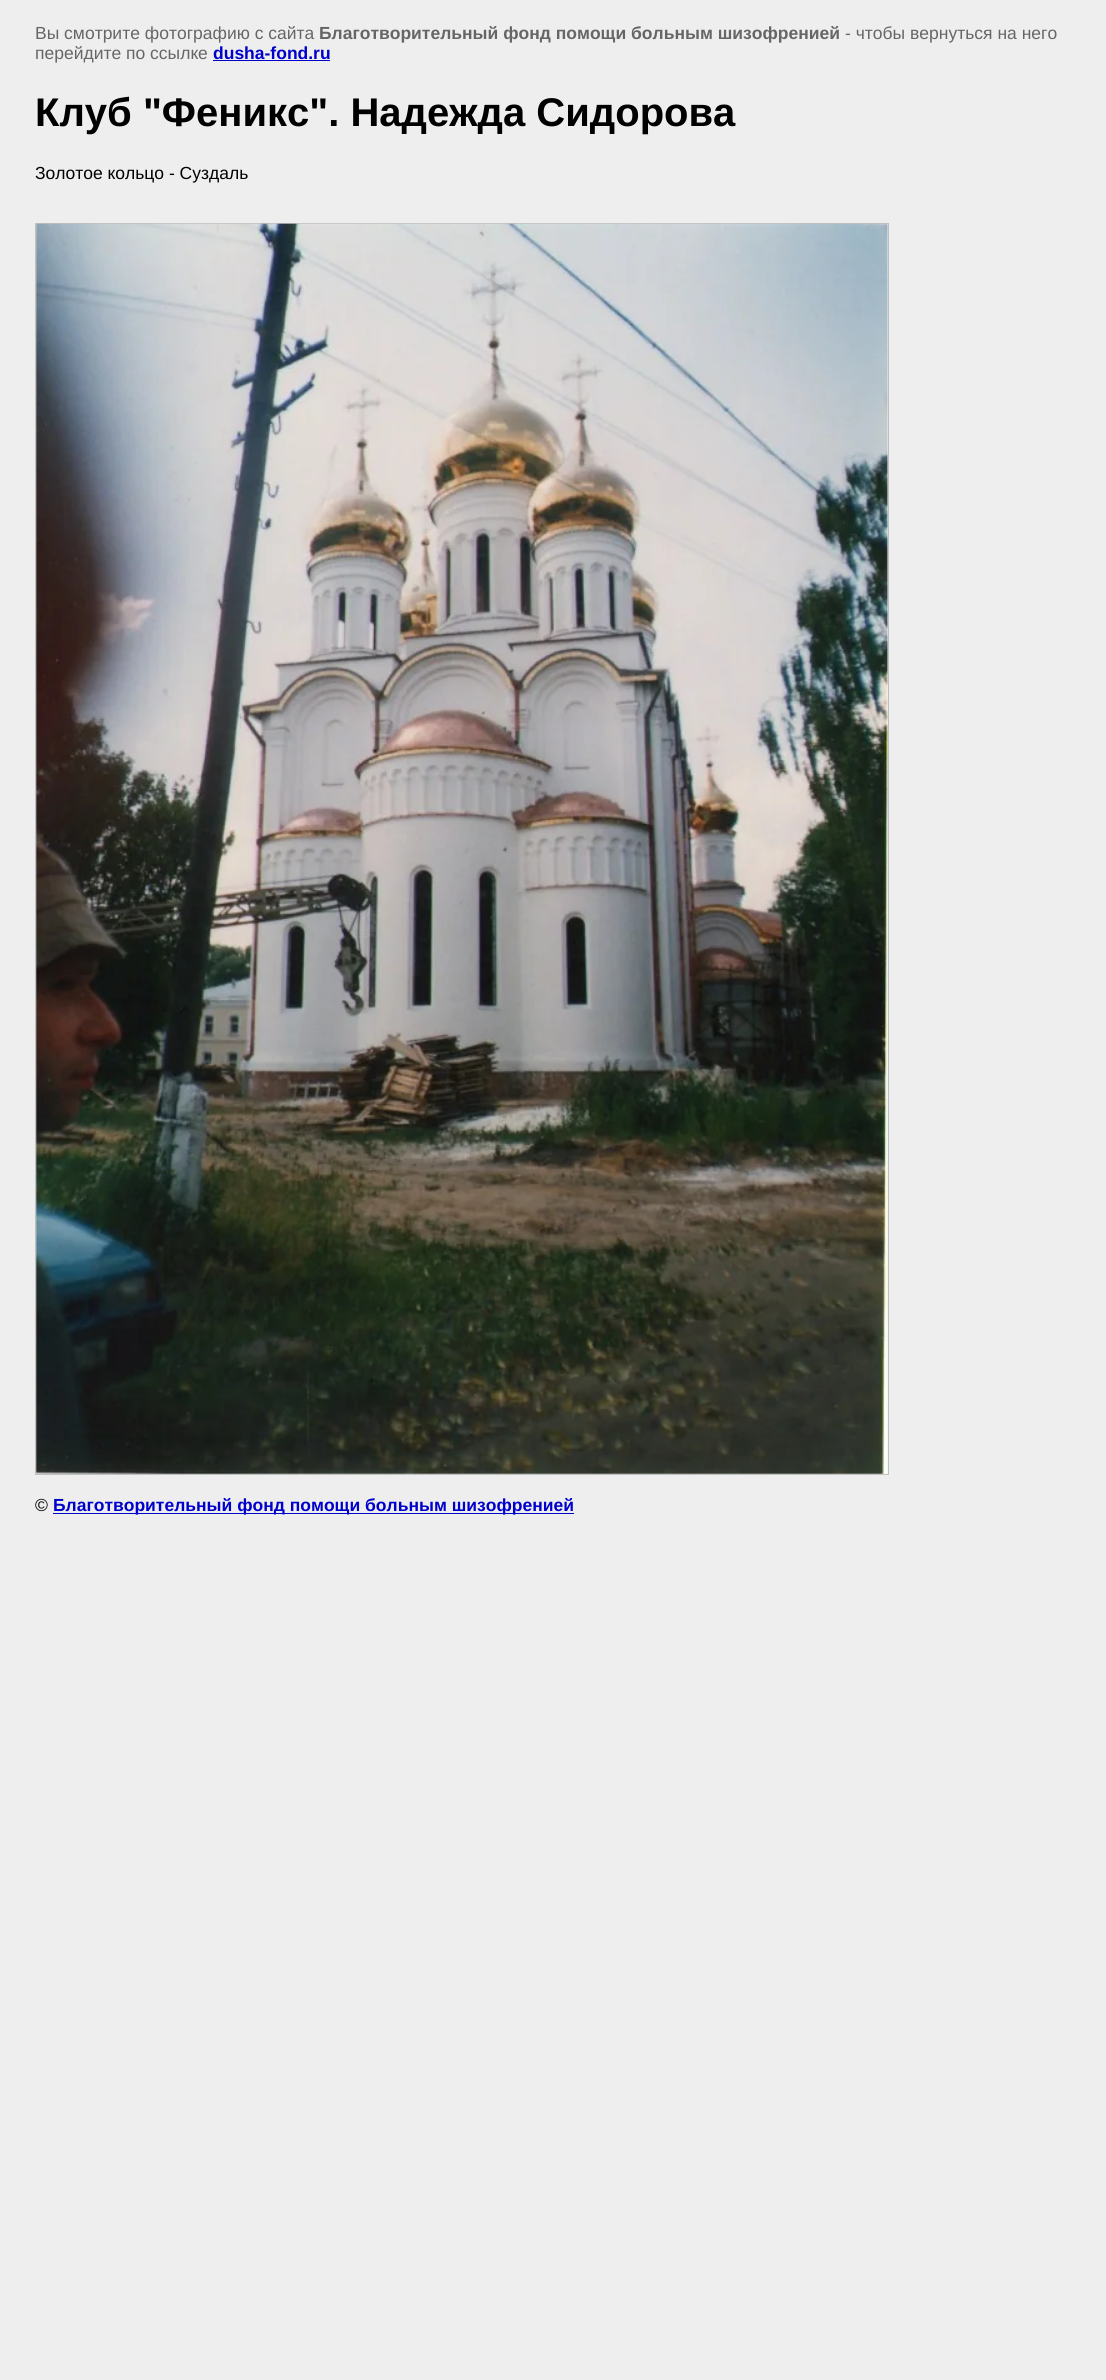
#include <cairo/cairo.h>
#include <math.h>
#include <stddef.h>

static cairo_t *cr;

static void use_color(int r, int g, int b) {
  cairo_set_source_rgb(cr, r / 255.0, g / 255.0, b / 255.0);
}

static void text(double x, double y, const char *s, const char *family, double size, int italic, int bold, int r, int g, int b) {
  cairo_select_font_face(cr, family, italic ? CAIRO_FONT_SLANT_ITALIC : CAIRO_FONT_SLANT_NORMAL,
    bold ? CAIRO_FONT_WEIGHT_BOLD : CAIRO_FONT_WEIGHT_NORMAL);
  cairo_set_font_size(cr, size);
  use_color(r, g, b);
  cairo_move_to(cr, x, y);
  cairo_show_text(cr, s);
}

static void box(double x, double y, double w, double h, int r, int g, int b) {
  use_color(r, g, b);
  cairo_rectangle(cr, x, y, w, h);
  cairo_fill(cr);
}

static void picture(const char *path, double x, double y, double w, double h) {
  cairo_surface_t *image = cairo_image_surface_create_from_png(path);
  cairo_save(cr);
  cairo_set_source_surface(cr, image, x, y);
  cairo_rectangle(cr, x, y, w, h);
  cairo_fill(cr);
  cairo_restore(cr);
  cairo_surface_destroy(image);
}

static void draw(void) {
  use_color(238, 238, 238);
  cairo_paint(cr);
  box(213, 60, 117, 1, 0, 0, 204);
  cairo_rectangle(cr, 35.5, 223.5, 853, 1251);
  use_color(192, 192, 192);
  cairo_set_line_width(cr, 1);
  cairo_stroke(cr);
  picture("img_01.png", 36, 223, 852, 1251);
  box(53, 1513, 521, 1, 0, 0, 204);
  text(35, 39, "Вы смотрите фотографию с сайта", "Liberation Sans", 17.5, 0, 0, 102, 102, 102);
  text(319, 39, "Благотворительный фонд помощи больным шизофренией", "Liberation Sans", 17.5, 0, 1, 102, 102, 102);
  text(845, 39, "- чтобы вернуться на него", "Liberation Sans", 17.5, 0, 0, 102, 102, 102);
  text(35, 59, "перейдите по ссылке", "Liberation Sans", 17.5, 0, 0, 102, 102, 102);
  text(213, 59, "dusha-fond.ru", "Liberation Sans", 17.5, 0, 1, 0, 0, 204);
  text(35, 126, "Клуб \"Феникс\". Надежда Сидорова", "Liberation Sans", 40, 0, 1, 0, 0, 0);
  text(35, 179, "Золотое кольцо - Суздаль", "Liberation Sans", 17.5, 0, 0, 0, 0, 0);
  text(35, 1511, "©", "Liberation Sans", 17.5, 0, 0, 0, 0, 0);
  text(53, 1511, "Благотворительный фонд помощи больным шизофренией", "Liberation Sans", 17.5, 0, 1, 0, 0, 204);
}

int main(void) {
  cairo_surface_t *surface = cairo_image_surface_create(CAIRO_FORMAT_RGB24, 1106, 2380);
  cr = cairo_create(surface);
  cairo_font_options_t *options = cairo_font_options_create();
  cairo_font_options_set_hint_metrics(options, CAIRO_HINT_METRICS_OFF);
  cairo_font_options_set_hint_style(options, CAIRO_HINT_STYLE_NONE);
  cairo_set_font_options(cr, options);
  cairo_set_miter_limit(cr, 4);
  draw();
  cairo_surface_write_to_png(surface, "out.png");
  cairo_font_options_destroy(options);
  cairo_destroy(cr);
  cairo_surface_destroy(surface);
  return 0;
}
